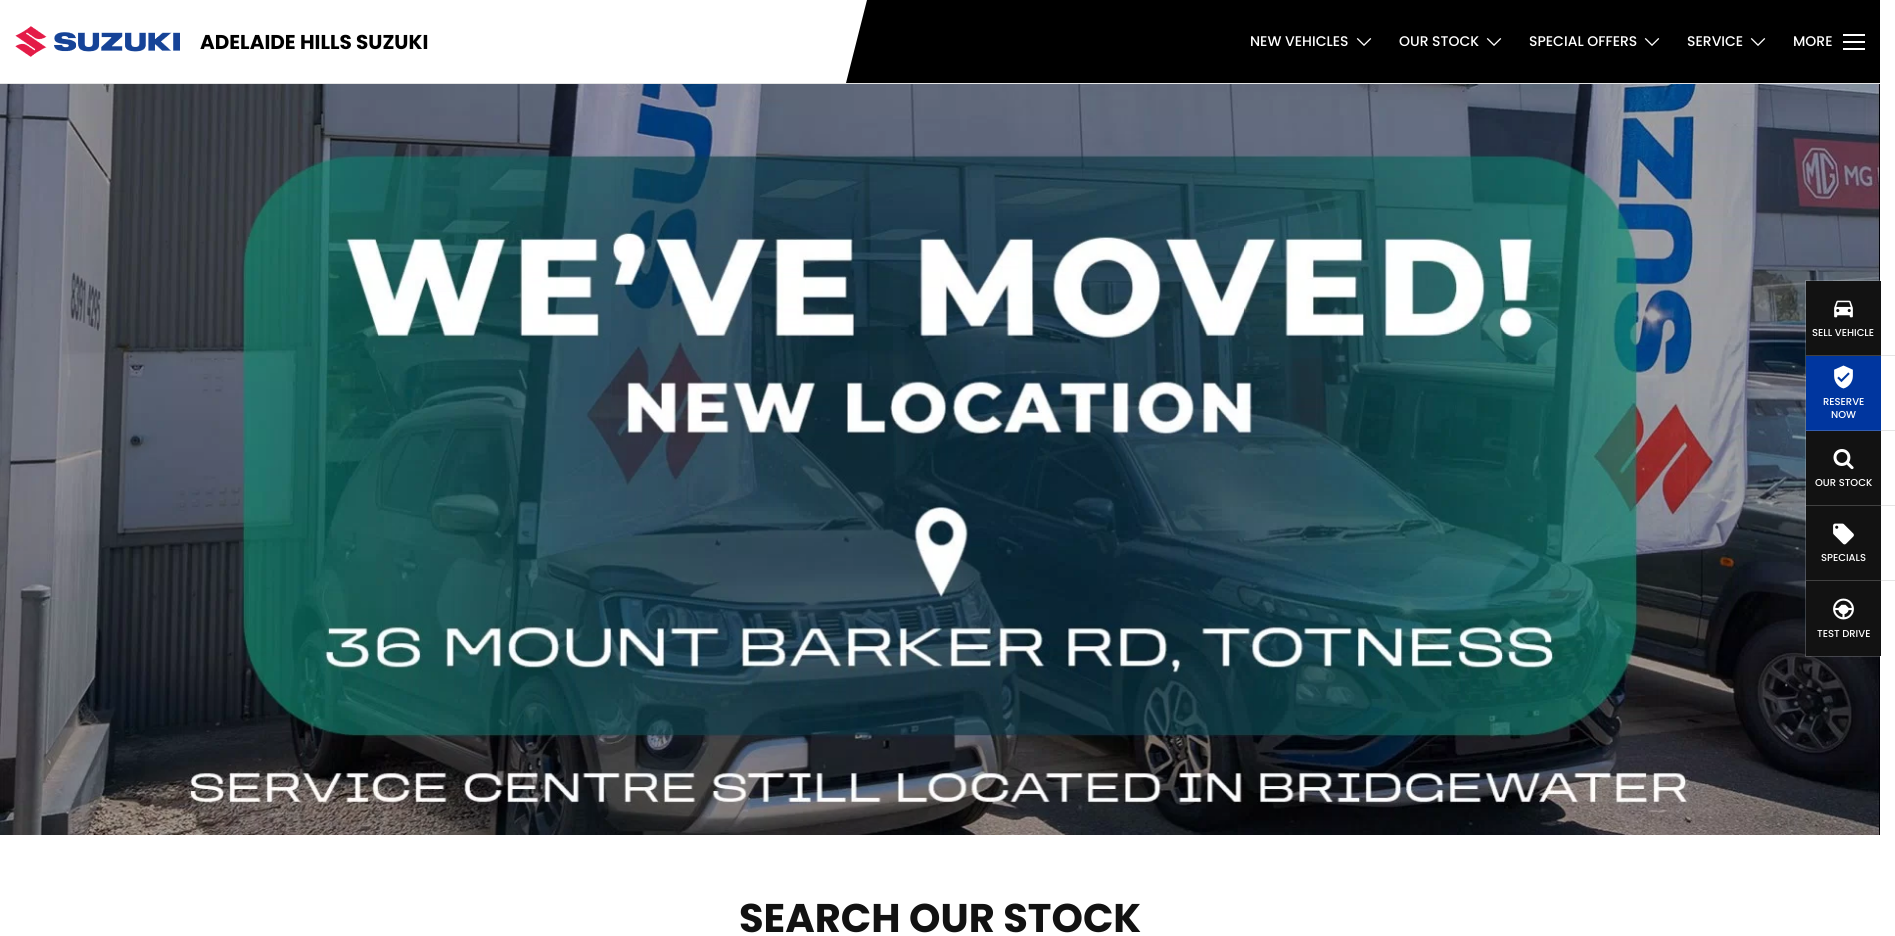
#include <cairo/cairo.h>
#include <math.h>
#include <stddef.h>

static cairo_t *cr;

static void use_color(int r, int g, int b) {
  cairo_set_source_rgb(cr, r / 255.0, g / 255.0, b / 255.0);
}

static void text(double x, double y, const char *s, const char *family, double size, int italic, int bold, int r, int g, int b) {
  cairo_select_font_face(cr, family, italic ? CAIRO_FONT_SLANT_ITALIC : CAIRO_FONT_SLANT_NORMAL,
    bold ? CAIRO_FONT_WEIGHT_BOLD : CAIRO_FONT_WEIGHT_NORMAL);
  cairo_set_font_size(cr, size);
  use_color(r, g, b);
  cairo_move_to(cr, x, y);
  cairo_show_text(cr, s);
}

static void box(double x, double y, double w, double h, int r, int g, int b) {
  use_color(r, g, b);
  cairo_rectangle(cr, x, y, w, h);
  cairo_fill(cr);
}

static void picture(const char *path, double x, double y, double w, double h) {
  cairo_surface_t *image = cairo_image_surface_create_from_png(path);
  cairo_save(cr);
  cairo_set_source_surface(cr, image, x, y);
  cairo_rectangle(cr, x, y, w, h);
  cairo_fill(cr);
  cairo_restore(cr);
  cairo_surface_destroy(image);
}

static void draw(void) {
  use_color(255, 255, 255);
  cairo_paint(cr);
  box(0, 83, 1880, 1, 229, 229, 229);
  picture("img_01.png", 15, 26, 165, 31);
  use_color(0, 0, 0);
  cairo_new_path(cr);
  cairo_move_to(cr, 867, 0);
  cairo_line_to(cr, 846, 83);
  cairo_line_to(cr, 1880, 83);
  cairo_line_to(cr, 1880, 0);
  cairo_close_path(cr);
  cairo_fill(cr);
  picture("img_02.png", 1356, 38, 16, 8);
  picture("img_02.png", 1486, 38, 16, 8);
  picture("img_02.png", 1644, 38, 16, 8);
  picture("img_02.png", 1750, 38, 16, 8);
  box(1843, 34, 22, 2, 255, 255, 255);
  box(1843, 41, 22, 2, 255, 255, 255);
  box(1843, 48, 22, 2, 255, 255, 255);
  picture("img_08.png", 0, 84, 1880, 751);
  cairo_rectangle(cr, 1805.5, 280.5, 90, 376);
  cairo_set_source_rgba(cr, 1, 1, 1, 0.2);
  cairo_set_line_width(cr, 1);
  cairo_stroke(cr);
  box(1806, 281, 75, 74, 18, 18, 18);
  box(1806, 355, 75, 1, 65, 65, 65);
  picture("img_03.png", 1834, 300, 19, 18);
  box(1881, 355, 14, 1, 229, 229, 229);
  box(1806, 356, 75, 74, 0, 54, 159);
  box(1806, 430, 75, 1, 51, 94, 178);
  picture("img_04.png", 1834, 365, 19, 24);
  box(1881, 430, 14, 1, 229, 229, 229);
  box(1806, 431, 75, 74, 18, 18, 18);
  box(1806, 505, 75, 1, 65, 65, 65);
  picture("img_05.png", 1833, 449, 21, 21);
  box(1881, 505, 14, 1, 229, 229, 229);
  box(1806, 506, 75, 74, 18, 18, 18);
  box(1806, 580, 75, 1, 65, 65, 65);
  picture("img_06.png", 1833, 523, 21, 22);
  box(1881, 580, 14, 1, 229, 229, 229);
  box(1806, 581, 75, 75, 18, 18, 18);
  picture("img_07.png", 1833, 598, 21, 22);
  text(200, 49, "ADELAIDE HILLS SUZUKI", "Poppins", 20, 0, 1, 0, 0, 0);
  text(1250, 46, "NEW VEHICLES", "Poppins Medium", 14, 0, 0, 255, 255, 255);
  text(1399, 46, "OUR STOCK", "Poppins Medium", 14, 0, 0, 255, 255, 255);
  text(1529, 46, "SPECIAL OFFERS", "Poppins Medium", 14, 0, 0, 255, 255, 255);
  text(1687, 46, "SERVICE", "Poppins Medium", 14, 0, 0, 255, 255, 255);
  text(1793, 46, "MORE", "Poppins Medium", 14, 0, 0, 255, 255, 255);
  text(1812, 336, "SELL VEHICLE", "Poppins Medium", 10, 0, 0, 255, 255, 255);
  text(1823, 405, "RESERVE", "Poppins Medium", 10, 0, 0, 255, 255, 255);
  text(1831, 418, "NOW", "Poppins Medium", 10, 0, 0, 255, 255, 255);
  text(1815, 486, "OUR STOCK", "Poppins Medium", 10, 0, 0, 255, 255, 255);
  text(1821, 561, "SPECIALS", "Poppins Medium", 10, 0, 0, 255, 255, 255);
  text(1817, 637, "TEST DRIVE", "Poppins Medium", 10, 0, 0, 255, 255, 255);
  text(739, 932, "SEARCH OUR STOCK", "Poppins", 40, 0, 1, 18, 18, 18);
}

int main(void) {
  cairo_surface_t *surface = cairo_image_surface_create(CAIRO_FORMAT_RGB24, 1895, 936);
  cr = cairo_create(surface);
  cairo_font_options_t *options = cairo_font_options_create();
  cairo_font_options_set_hint_metrics(options, CAIRO_HINT_METRICS_OFF);
  cairo_font_options_set_hint_style(options, CAIRO_HINT_STYLE_NONE);
  cairo_set_font_options(cr, options);
  cairo_set_miter_limit(cr, 4);
  draw();
  cairo_surface_write_to_png(surface, "out.png");
  cairo_font_options_destroy(options);
  cairo_destroy(cr);
  cairo_surface_destroy(surface);
  return 0;
}
